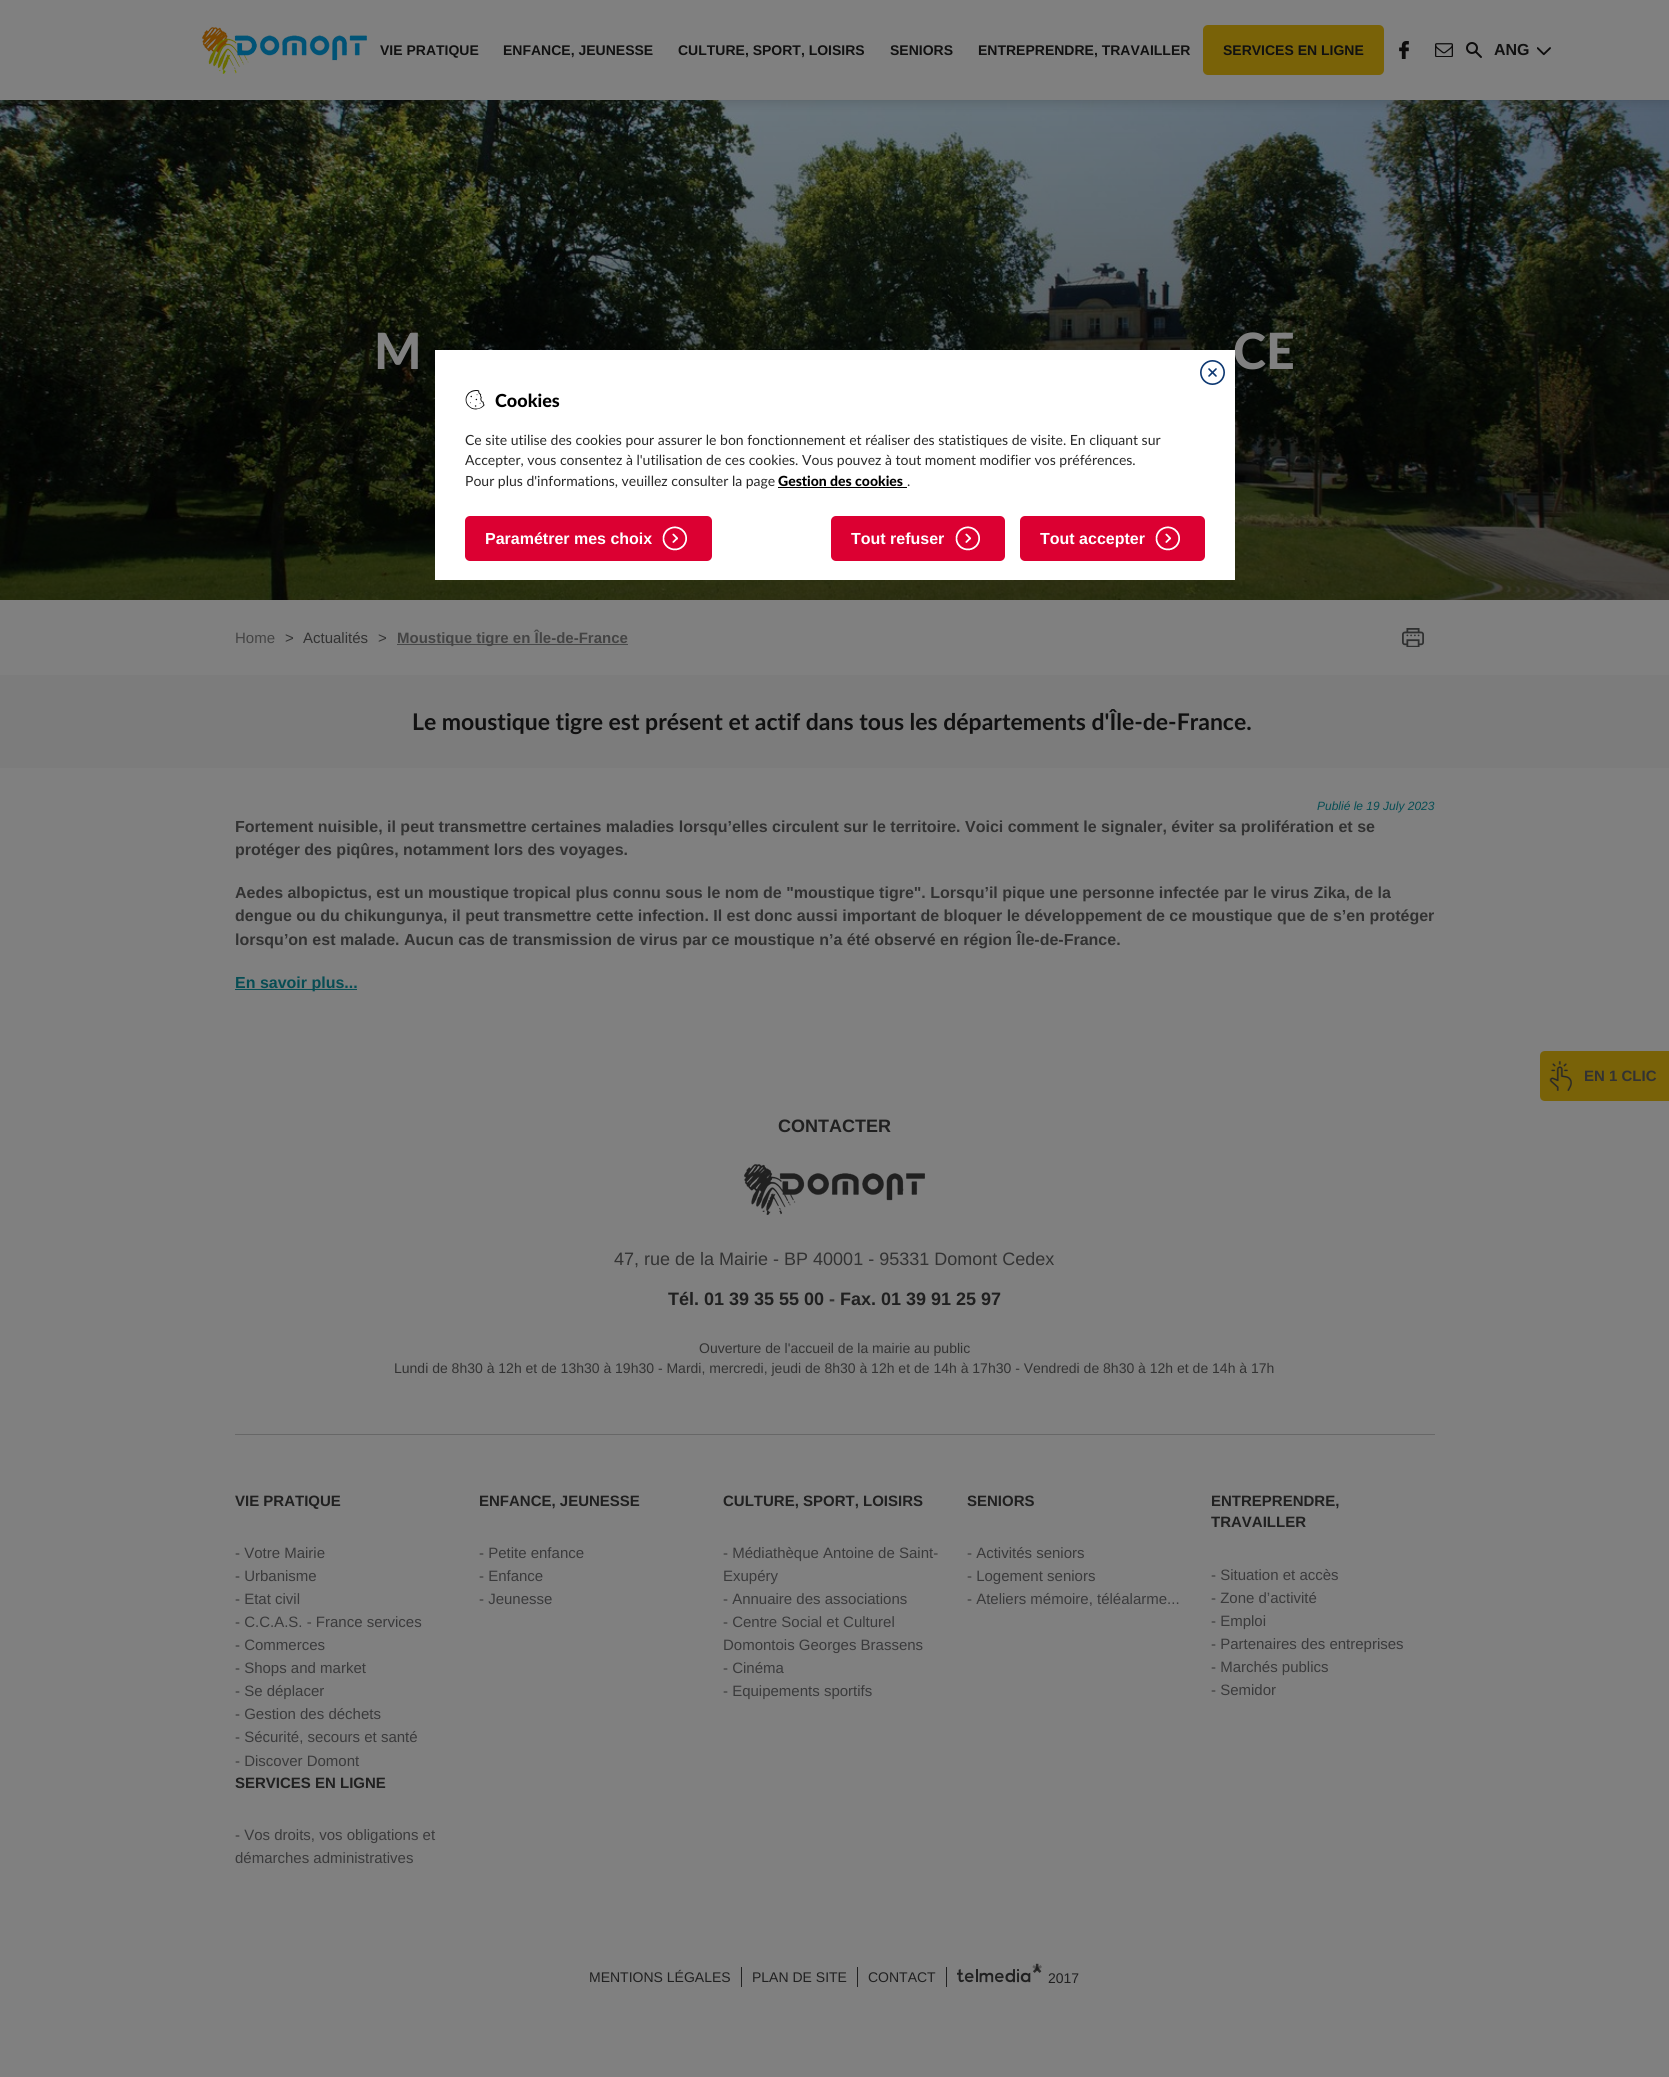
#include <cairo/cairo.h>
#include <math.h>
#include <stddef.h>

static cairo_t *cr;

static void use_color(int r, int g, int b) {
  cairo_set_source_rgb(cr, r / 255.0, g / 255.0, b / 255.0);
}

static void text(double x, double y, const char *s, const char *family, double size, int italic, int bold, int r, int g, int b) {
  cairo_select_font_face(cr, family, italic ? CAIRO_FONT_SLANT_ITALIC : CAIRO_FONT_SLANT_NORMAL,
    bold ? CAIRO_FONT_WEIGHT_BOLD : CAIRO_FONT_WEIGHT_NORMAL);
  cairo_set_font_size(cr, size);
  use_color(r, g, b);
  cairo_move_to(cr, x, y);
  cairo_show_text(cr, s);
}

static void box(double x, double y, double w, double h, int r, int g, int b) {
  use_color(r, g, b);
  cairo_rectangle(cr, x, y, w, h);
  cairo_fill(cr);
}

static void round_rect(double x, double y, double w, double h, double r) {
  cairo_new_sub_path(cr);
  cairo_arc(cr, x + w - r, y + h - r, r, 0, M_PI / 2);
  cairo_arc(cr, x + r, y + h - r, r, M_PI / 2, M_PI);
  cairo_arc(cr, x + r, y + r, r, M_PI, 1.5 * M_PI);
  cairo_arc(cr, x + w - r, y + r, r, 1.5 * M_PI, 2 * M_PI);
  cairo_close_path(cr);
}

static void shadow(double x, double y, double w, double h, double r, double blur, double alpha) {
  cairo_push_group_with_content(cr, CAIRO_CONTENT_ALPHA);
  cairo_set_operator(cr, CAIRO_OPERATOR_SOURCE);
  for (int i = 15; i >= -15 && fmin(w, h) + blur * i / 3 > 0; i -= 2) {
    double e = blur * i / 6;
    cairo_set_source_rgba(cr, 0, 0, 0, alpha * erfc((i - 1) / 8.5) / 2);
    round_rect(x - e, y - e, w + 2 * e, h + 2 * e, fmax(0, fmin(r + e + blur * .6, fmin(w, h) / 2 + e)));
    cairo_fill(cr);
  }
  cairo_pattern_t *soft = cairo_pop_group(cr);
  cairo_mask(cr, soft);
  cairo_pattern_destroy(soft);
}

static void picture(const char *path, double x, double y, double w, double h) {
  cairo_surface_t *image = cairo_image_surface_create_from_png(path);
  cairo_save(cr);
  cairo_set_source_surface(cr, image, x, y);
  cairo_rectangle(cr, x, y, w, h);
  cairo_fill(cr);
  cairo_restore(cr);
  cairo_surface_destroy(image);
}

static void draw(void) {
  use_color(128, 128, 128);
  cairo_paint(cr);
  picture("img_06.png", 0, 100, 1669, 500);
  use_color(0, 0, 0);
  shadow(0, 0, 1669, 100, 0, 6.5, 0.2);
  box(0, 0, 1669, 100, 128, 128, 128);
  picture("img_01.png", 202, 27, 165, 47);
  use_color(121, 98, 8);
  round_rect(1203, 25, 181, 50, 5);
  cairo_fill(cr);
  picture("img_02.png", 1399, 41, 10, 18);
  picture("img_03.png", 1435, 43, 18, 14);
  picture("img_04.png", 1466, 42, 16, 16);
  picture("img_05.png", 1537, 47, 14, 9);
  cairo_new_path(cr);
  cairo_move_to(cr, 1545, 1051);
  cairo_line_to(cr, 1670, 1051);
  cairo_line_to(cr, 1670, 1101);
  cairo_line_to(cr, 1545, 1101);
  cairo_curve_to(cr, 1542, 1101, 1540, 1099, 1540, 1096);
  cairo_line_to(cr, 1540, 1056);
  cairo_curve_to(cr, 1540, 1053, 1542, 1051, 1545, 1051);
  cairo_close_path(cr);
  cairo_fill(cr);
  picture("img_07.png", 1549, 1061, 23, 30);
  box(397, 644, 231, 1, 71, 72, 72);
  picture("img_08.png", 1402, 628, 22, 19);
  box(0, 675, 1669, 93, 124, 124, 124);
  box(235, 989, 122, 1, 7, 77, 84);
  box(235, 1434, 1200, 1, 103, 103, 103);
  picture("img_12.png", 744, 1164, 181, 51);
  box(741, 1967, 1, 20, 32, 32, 32);
  box(857, 1967, 1, 20, 32, 32, 32);
  box(946, 1967, 1, 20, 32, 32, 32);
  picture("img_13.png", 957, 1963, 85, 20);
  text(380, 55, "VIE PRATIQUE", "Liberation Sans", 14, 0, 1, 17, 17, 17);
  text(503, 55, "ENFANCE, JEUNESSE", "Liberation Sans", 14, 0, 1, 17, 17, 17);
  text(678, 55, "CULTURE, SPORT, LOISIRS", "Liberation Sans", 14, 0, 1, 17, 17, 17);
  text(890, 55, "SENIORS", "Liberation Sans", 14, 0, 1, 17, 17, 17);
  text(978, 55, "ENTREPRENDRE, TRAVAILLER", "Liberation Sans", 14, 0, 1, 17, 17, 17);
  text(1223, 55, "SERVICES EN LIGNE", "Liberation Sans", 14, 0, 1, 17, 17, 17);
  text(1494, 55, "ANG", "Liberation Sans", 16, 0, 1, 17, 17, 17);
  text(374, 369, "M", "Lato Black", 50, 0, 0, 128, 128, 128);
  text(1233, 369, "CE", "Lato Black", 50, 0, 0, 128, 128, 128);
  text(1584, 1081, "EN 1 CLIC", "Liberation Sans", 15, 0, 1, 50, 50, 50);
  text(235, 643, "Home", "Liberation Sans", 15, 0, 0, 68, 68, 68);
  text(285, 643, ">", "Liberation Sans", 15, 0, 0, 50, 50, 50);
  text(303, 643, "Actualités", "Liberation Sans", 15, 0, 0, 50, 50, 50);
  text(378, 643, ">", "Liberation Sans", 15, 0, 0, 50, 50, 50);
  text(397, 643, "Moustique tigre en Île-de-France", "Liberation Sans", 15, 0, 1, 68, 68, 68);
  text(412, 730, "Le moustique tigre est présent et actif dans tous les départements d'Île-de-France.", "Lato", 23, 0, 1, 17, 17, 17);
  text(1317, 810, "Publié le 19 July 2023", "Liberation Sans", 12, 1, 0, 7, 77, 84);
  text(235, 832, "Fortement nuisible, il peut transmettre certaines maladies lorsqu’elles circulent sur le territoire. Voici comment le signaler, éviter sa prolifération et se", "Liberation Sans", 16, 0, 1, 50, 50, 50);
  text(235, 855, "protéger des piqûres, notamment lors des voyages.", "Liberation Sans", 16, 0, 1, 50, 50, 50);
  text(235, 898, "Aedes albopictus, est un moustique tropical plus connu sous le nom de \"moustique tigre\". Lorsqu’il pique une personne infectée par le virus Zika, de la", "Liberation Sans", 16, 0, 1, 50, 50, 50);
  text(235, 921, "dengue ou du chikungunya, il peut transmettre cette infection. Il est donc aussi important de bloquer le développement de ce moustique que de s’en protéger", "Liberation Sans", 16, 0, 1, 50, 50, 50);
  text(235, 945, "lorsqu’on est malade. Aucun cas de transmission de virus par ce moustique n’a été observé en région Île-de-France.", "Liberation Sans", 16, 0, 1, 50, 50, 50);
  text(235, 988, "En savoir plus...", "Liberation Sans", 16, 0, 1, 7, 77, 84);
  box(435, 350, 800, 230, 255, 255, 255);
  picture("img_09.png", 1200, 360, 25, 25);
  picture("img_10.png", 465, 390, 20, 20);
  text(495, 407, "Cookies", "Lato Black", 18, 0, 0, 0, 0, 0);
  text(465, 445, "Ce site utilise des cookies pour assurer le bon fonctionnement et réaliser des statistiques de visite. En cliquant sur", "Lato", 14, 0, 0, 41, 41, 41);
  text(465, 465, "Accepter, vous consentez à l'utilisation de ces cookies. Vous pouvez à tout moment modifier vos préférences.", "Lato", 14, 0, 0, 41, 41, 41);
  text(465, 486, "Pour plus d'informations, veuillez consulter la page", "Lato", 14, 0, 0, 41, 41, 41);
  text(778, 486, "Gestion des cookies", "Lato Black", 14, 0, 0, 0, 0, 0);
  box(778, 487, 129, 1, 0, 0, 0);
  text(907, 486, ".", "Lato", 14, 0, 0, 41, 41, 41);
  use_color(220, 0, 50);
  round_rect(465, 516, 247, 45, 5);
  cairo_fill(cr);
  text(485, 544, "Paramétrer mes choix", "Liberation Sans", 16, 0, 1, 255, 255, 255);
  picture("img_11.png", 662, 526, 25, 25);
  use_color(220, 0, 50);
  round_rect(831, 516, 174, 45, 5);
  cairo_fill(cr);
  text(851, 544, "Tout refuser", "Liberation Sans", 16, 0, 1, 255, 255, 255);
  picture("img_11.png", 955, 526, 25, 25);
  use_color(220, 0, 50);
  round_rect(1020, 516, 185, 45, 5);
  cairo_fill(cr);
  text(1040, 544, "Tout accepter", "Liberation Sans", 16, 0, 1, 255, 255, 255);
  picture("img_11.png", 1155, 526, 25, 25);
  text(778, 1132, "CONTACTER", "Liberation Sans", 18, 0, 1, 32, 32, 32);
  text(614, 1265, "47, rue de la Mairie - BP 40001 - 95331 Domont Cedex", "Liberation Sans", 18, 0, 0, 50, 50, 50);
  text(668, 1305, "Tél. 01 39 35 55 00", "Liberation Sans", 18, 0, 1, 32, 32, 32);
  text(829, 1305, "-", "Liberation Sans", 18, 0, 1, 50, 50, 50);
  text(840, 1305, "Fax. 01 39 91 25 97", "Liberation Sans", 18, 0, 1, 32, 32, 32);
  text(699, 1353, "Ouverture de l'accueil de la mairie au public", "Liberation Sans", 14, 0, 0, 50, 50, 50);
  text(394, 1373, "Lundi de 8h30 à 12h et de 13h30 à 19h30 - Mardi, mercredi, jeudi de 8h30 à 12h et de 14h à 17h30 - Vendredi de 8h30 à 12h et de 14h à 17h", "Liberation Sans", 14, 0, 0, 50, 50, 50);
  text(235, 1506, "VIE PRATIQUE", "Liberation Sans", 15, 0, 1, 32, 32, 32);
  text(235, 1558, "- Votre Mairie", "Liberation Sans", 15, 0, 0, 58, 58, 59);
  text(235, 1581, "- Urbanisme", "Liberation Sans", 15, 0, 0, 58, 58, 59);
  text(235, 1604, "- Etat civil", "Liberation Sans", 15, 0, 0, 58, 58, 59);
  text(235, 1627, "- C.C.A.S. - France services", "Liberation Sans", 15, 0, 0, 58, 58, 59);
  text(235, 1650, "- Commerces", "Liberation Sans", 15, 0, 0, 58, 58, 59);
  text(235, 1673, "- Shops and market", "Liberation Sans", 15, 0, 0, 58, 58, 59);
  text(235, 1696, "- Se déplacer", "Liberation Sans", 15, 0, 0, 58, 58, 59);
  text(235, 1719, "- Gestion des déchets", "Liberation Sans", 15, 0, 0, 58, 58, 59);
  text(235, 1742, "- Sécurité, secours et santé", "Liberation Sans", 15, 0, 0, 58, 58, 59);
  text(235, 1766, "- Discover Domont", "Liberation Sans", 15, 0, 0, 58, 58, 59);
  text(479, 1506, "ENFANCE, JEUNESSE", "Liberation Sans", 15, 0, 1, 32, 32, 32);
  text(479, 1558, "- Petite enfance", "Liberation Sans", 15, 0, 0, 58, 58, 59);
  text(479, 1581, "- Enfance", "Liberation Sans", 15, 0, 0, 58, 58, 59);
  text(479, 1604, "- Jeunesse", "Liberation Sans", 15, 0, 0, 58, 58, 59);
  text(723, 1506, "CULTURE, SPORT, LOISIRS", "Liberation Sans", 15, 0, 1, 32, 32, 32);
  text(723, 1558, "- Médiathèque Antoine de Saint-", "Liberation Sans", 15, 0, 0, 58, 58, 59);
  text(723, 1581, "Exupéry", "Liberation Sans", 15, 0, 0, 58, 58, 59);
  text(723, 1604, "- Annuaire des associations", "Liberation Sans", 15, 0, 0, 58, 58, 59);
  text(723, 1627, "- Centre Social et Culturel", "Liberation Sans", 15, 0, 0, 58, 58, 59);
  text(723, 1650, "Domontois Georges Brassens", "Liberation Sans", 15, 0, 0, 58, 58, 59);
  text(723, 1673, "- Cinéma", "Liberation Sans", 15, 0, 0, 58, 58, 59);
  text(723, 1696, "- Equipements sportifs", "Liberation Sans", 15, 0, 0, 58, 58, 59);
  text(967, 1506, "SENIORS", "Liberation Sans", 15, 0, 1, 32, 32, 32);
  text(967, 1558, "- Activités seniors", "Liberation Sans", 15, 0, 0, 58, 58, 59);
  text(967, 1581, "- Logement seniors", "Liberation Sans", 15, 0, 0, 58, 58, 59);
  text(967, 1604, "- Ateliers mémoire, téléalarme...", "Liberation Sans", 15, 0, 0, 58, 58, 59);
  text(1211, 1506, "ENTREPRENDRE,", "Liberation Sans", 15, 0, 1, 32, 32, 32);
  text(1211, 1527, "TRAVAILLER", "Liberation Sans", 15, 0, 1, 32, 32, 32);
  text(1211, 1580, "- Situation et accès", "Liberation Sans", 15, 0, 0, 58, 58, 59);
  text(1211, 1603, "- Zone d’activité", "Liberation Sans", 15, 0, 0, 58, 58, 59);
  text(1211, 1626, "- Emploi", "Liberation Sans", 15, 0, 0, 58, 58, 59);
  text(1211, 1649, "- Partenaires des entreprises", "Liberation Sans", 15, 0, 0, 58, 58, 59);
  text(1211, 1672, "- Marchés publics", "Liberation Sans", 15, 0, 0, 58, 58, 59);
  text(1211, 1695, "- Semidor", "Liberation Sans", 15, 0, 0, 58, 58, 59);
  text(235, 1788, "SERVICES EN LIGNE", "Liberation Sans", 15, 0, 1, 32, 32, 32);
  text(235, 1840, "- Vos droits, vos obligations et", "Liberation Sans", 15, 0, 0, 58, 58, 59);
  text(235, 1863, "démarches administratives", "Liberation Sans", 15, 0, 0, 58, 58, 59);
  text(589, 1982, "MENTIONS LÉGALES", "Liberation Sans", 14, 0, 0, 32, 32, 32);
  text(752, 1982, "PLAN DE SITE", "Liberation Sans", 14, 0, 0, 32, 32, 32);
  text(868, 1982, "CONTACT", "Liberation Sans", 14, 0, 0, 32, 32, 32);
  text(1048, 1983, "2017", "Liberation Sans", 14, 0, 0, 32, 32, 32);
}

int main(void) {
  cairo_surface_t *surface = cairo_image_surface_create(CAIRO_FORMAT_RGB24, 1669, 2077);
  cr = cairo_create(surface);
  cairo_font_options_t *options = cairo_font_options_create();
  cairo_font_options_set_hint_metrics(options, CAIRO_HINT_METRICS_OFF);
  cairo_font_options_set_hint_style(options, CAIRO_HINT_STYLE_NONE);
  cairo_set_font_options(cr, options);
  cairo_set_miter_limit(cr, 4);
  draw();
  cairo_surface_write_to_png(surface, "out.png");
  cairo_font_options_destroy(options);
  cairo_destroy(cr);
  cairo_surface_destroy(surface);
  return 0;
}
